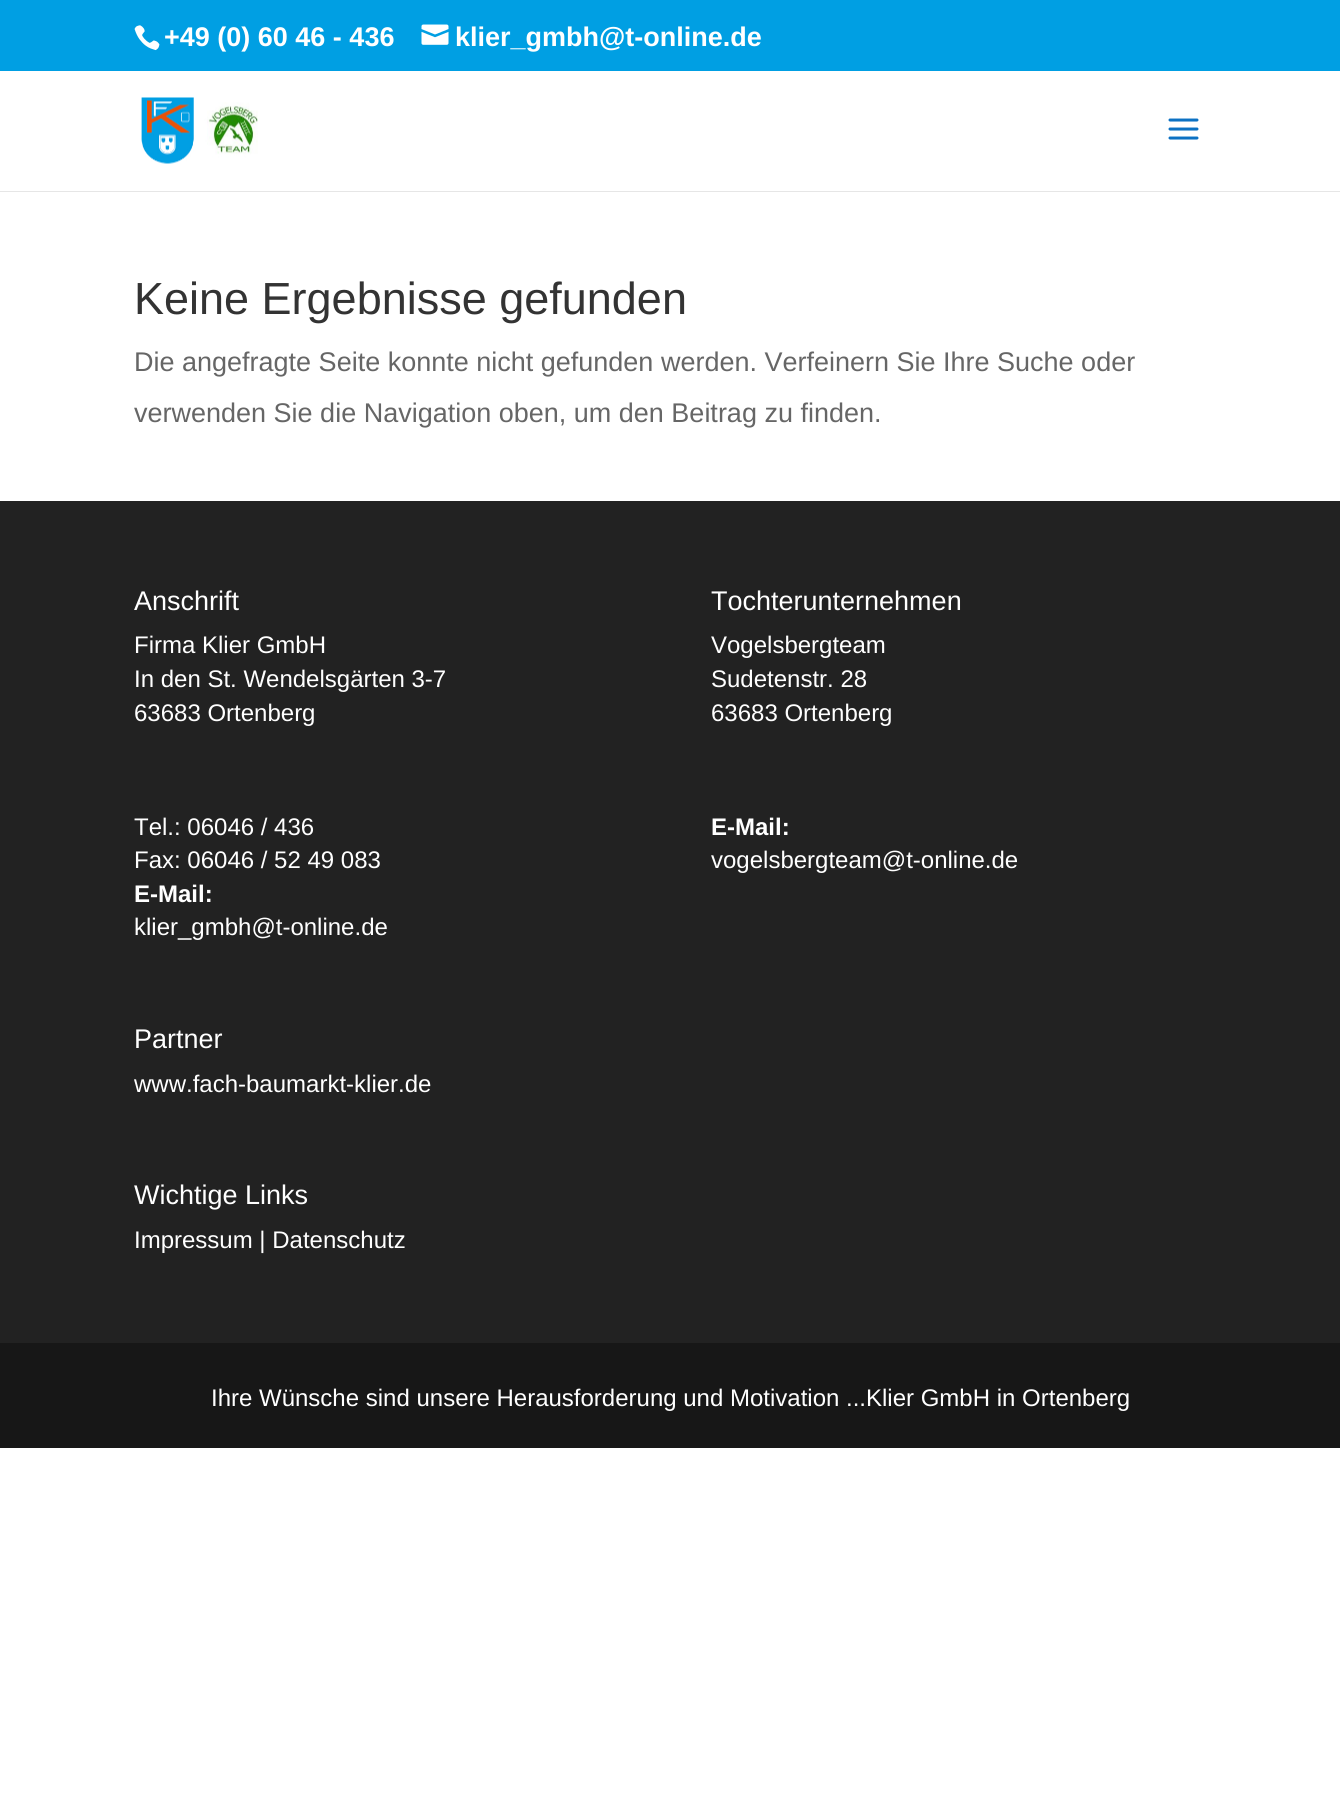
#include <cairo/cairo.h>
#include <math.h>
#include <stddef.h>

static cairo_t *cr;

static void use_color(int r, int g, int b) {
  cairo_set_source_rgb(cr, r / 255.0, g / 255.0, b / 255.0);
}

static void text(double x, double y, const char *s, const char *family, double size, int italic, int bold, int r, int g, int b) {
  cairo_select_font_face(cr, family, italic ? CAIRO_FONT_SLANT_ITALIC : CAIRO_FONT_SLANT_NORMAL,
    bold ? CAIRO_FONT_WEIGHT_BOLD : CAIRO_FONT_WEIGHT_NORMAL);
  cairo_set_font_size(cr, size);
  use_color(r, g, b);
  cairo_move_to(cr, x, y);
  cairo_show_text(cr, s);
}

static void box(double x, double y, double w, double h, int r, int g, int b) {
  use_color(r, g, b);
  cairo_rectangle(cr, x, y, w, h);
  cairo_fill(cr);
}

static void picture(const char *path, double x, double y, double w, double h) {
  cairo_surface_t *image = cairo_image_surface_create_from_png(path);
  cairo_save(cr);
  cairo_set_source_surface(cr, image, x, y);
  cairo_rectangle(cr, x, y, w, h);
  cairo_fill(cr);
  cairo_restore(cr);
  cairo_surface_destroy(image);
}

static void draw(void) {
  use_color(255, 255, 255);
  cairo_paint(cr);
  box(0, 0, 1340, 71, 0, 159, 227);
  picture("img_01.png", 134, 25, 26, 26);
  picture("img_02.png", 421, 24, 28, 21);
  box(0, 191, 1340, 1, 230, 230, 230);
  picture("img_03.png", 141, 97, 117, 67);
  picture("img_04.png", 1168, 118, 31, 22);
  box(0, 501, 1340, 842, 34, 34, 34);
  box(0, 1343, 1340, 105, 23, 23, 23);
  text(164, 46, "+49 (0) 60 46 - 436", "Liberation Sans", 27, 0, 1, 255, 255, 255);
  text(455, 46, "klier_gmbh@t-online.de", "Liberation Sans", 27, 0, 1, 255, 255, 255);
  text(134, 314, "Keine Ergebnisse gefunden", "Liberation Sans", 45, 0, 0, 51, 51, 51);
  text(134, 371, "Die angefragte Seite konnte nicht gefunden werden. Verfeinern Sie Ihre Suche oder", "Liberation Sans", 27, 0, 0, 102, 102, 102);
  text(134, 422, "verwenden Sie die Navigation oben, um den Beitrag zu finden.", "Liberation Sans", 27, 0, 0, 102, 102, 102);
  text(134, 610, "Anschrift", "Liberation Sans", 27, 0, 0, 255, 255, 255);
  text(134, 653, "Firma Klier GmbH", "Liberation Sans", 24, 0, 0, 255, 255, 255);
  text(134, 687, "In den St. Wendelsgärten 3-7", "Liberation Sans", 24, 0, 0, 255, 255, 255);
  text(134, 721, "63683 Ortenberg", "Liberation Sans", 24, 0, 0, 255, 255, 255);
  text(134, 835, "Tel.: 06046 / 436", "Liberation Sans", 24, 0, 0, 255, 255, 255);
  text(134, 868, "Fax: 06046 / 52 49 083", "Liberation Sans", 24, 0, 0, 255, 255, 255);
  text(134, 902, "E-Mail:", "Liberation Sans", 24, 0, 1, 255, 255, 255);
  text(134, 935, "klier_gmbh@t-online.de", "Liberation Sans", 24, 0, 0, 255, 255, 255);
  text(711, 610, "Tochterunternehmen", "Liberation Sans", 27, 0, 0, 255, 255, 255);
  text(711, 653, "Vogelsbergteam", "Liberation Sans", 24, 0, 0, 255, 255, 255);
  text(711, 687, "Sudetenstr. 28", "Liberation Sans", 24, 0, 0, 255, 255, 255);
  text(711, 721, "63683 Ortenberg", "Liberation Sans", 24, 0, 0, 255, 255, 255);
  text(711, 835, "E-Mail:", "Liberation Sans", 24, 0, 1, 255, 255, 255);
  text(711, 868, "vogelsbergteam@t-online.de", "Liberation Sans", 24, 0, 0, 255, 255, 255);
  text(134, 1048, "Partner", "Liberation Sans", 27, 0, 0, 255, 255, 255);
  text(134, 1092, "www.fach-baumarkt-klier.de", "Liberation Sans", 24, 0, 0, 255, 255, 255);
  text(134, 1204, "Wichtige Links", "Liberation Sans", 27, 0, 0, 255, 255, 255);
  text(134, 1248, "Impressum | Datenschutz", "Liberation Sans", 24, 0, 0, 255, 255, 255);
  text(211, 1406, "Ihre Wünsche sind unsere Herausforderung und Motivation ...Klier GmbH in Ortenberg", "Liberation Sans", 24, 0, 0, 255, 255, 255);
}

int main(void) {
  cairo_surface_t *surface = cairo_image_surface_create(CAIRO_FORMAT_RGB24, 1340, 1797);
  cr = cairo_create(surface);
  cairo_font_options_t *options = cairo_font_options_create();
  cairo_font_options_set_hint_metrics(options, CAIRO_HINT_METRICS_OFF);
  cairo_font_options_set_hint_style(options, CAIRO_HINT_STYLE_NONE);
  cairo_set_font_options(cr, options);
  cairo_set_miter_limit(cr, 4);
  draw();
  cairo_surface_write_to_png(surface, "out.png");
  cairo_font_options_destroy(options);
  cairo_destroy(cr);
  cairo_surface_destroy(surface);
  return 0;
}
